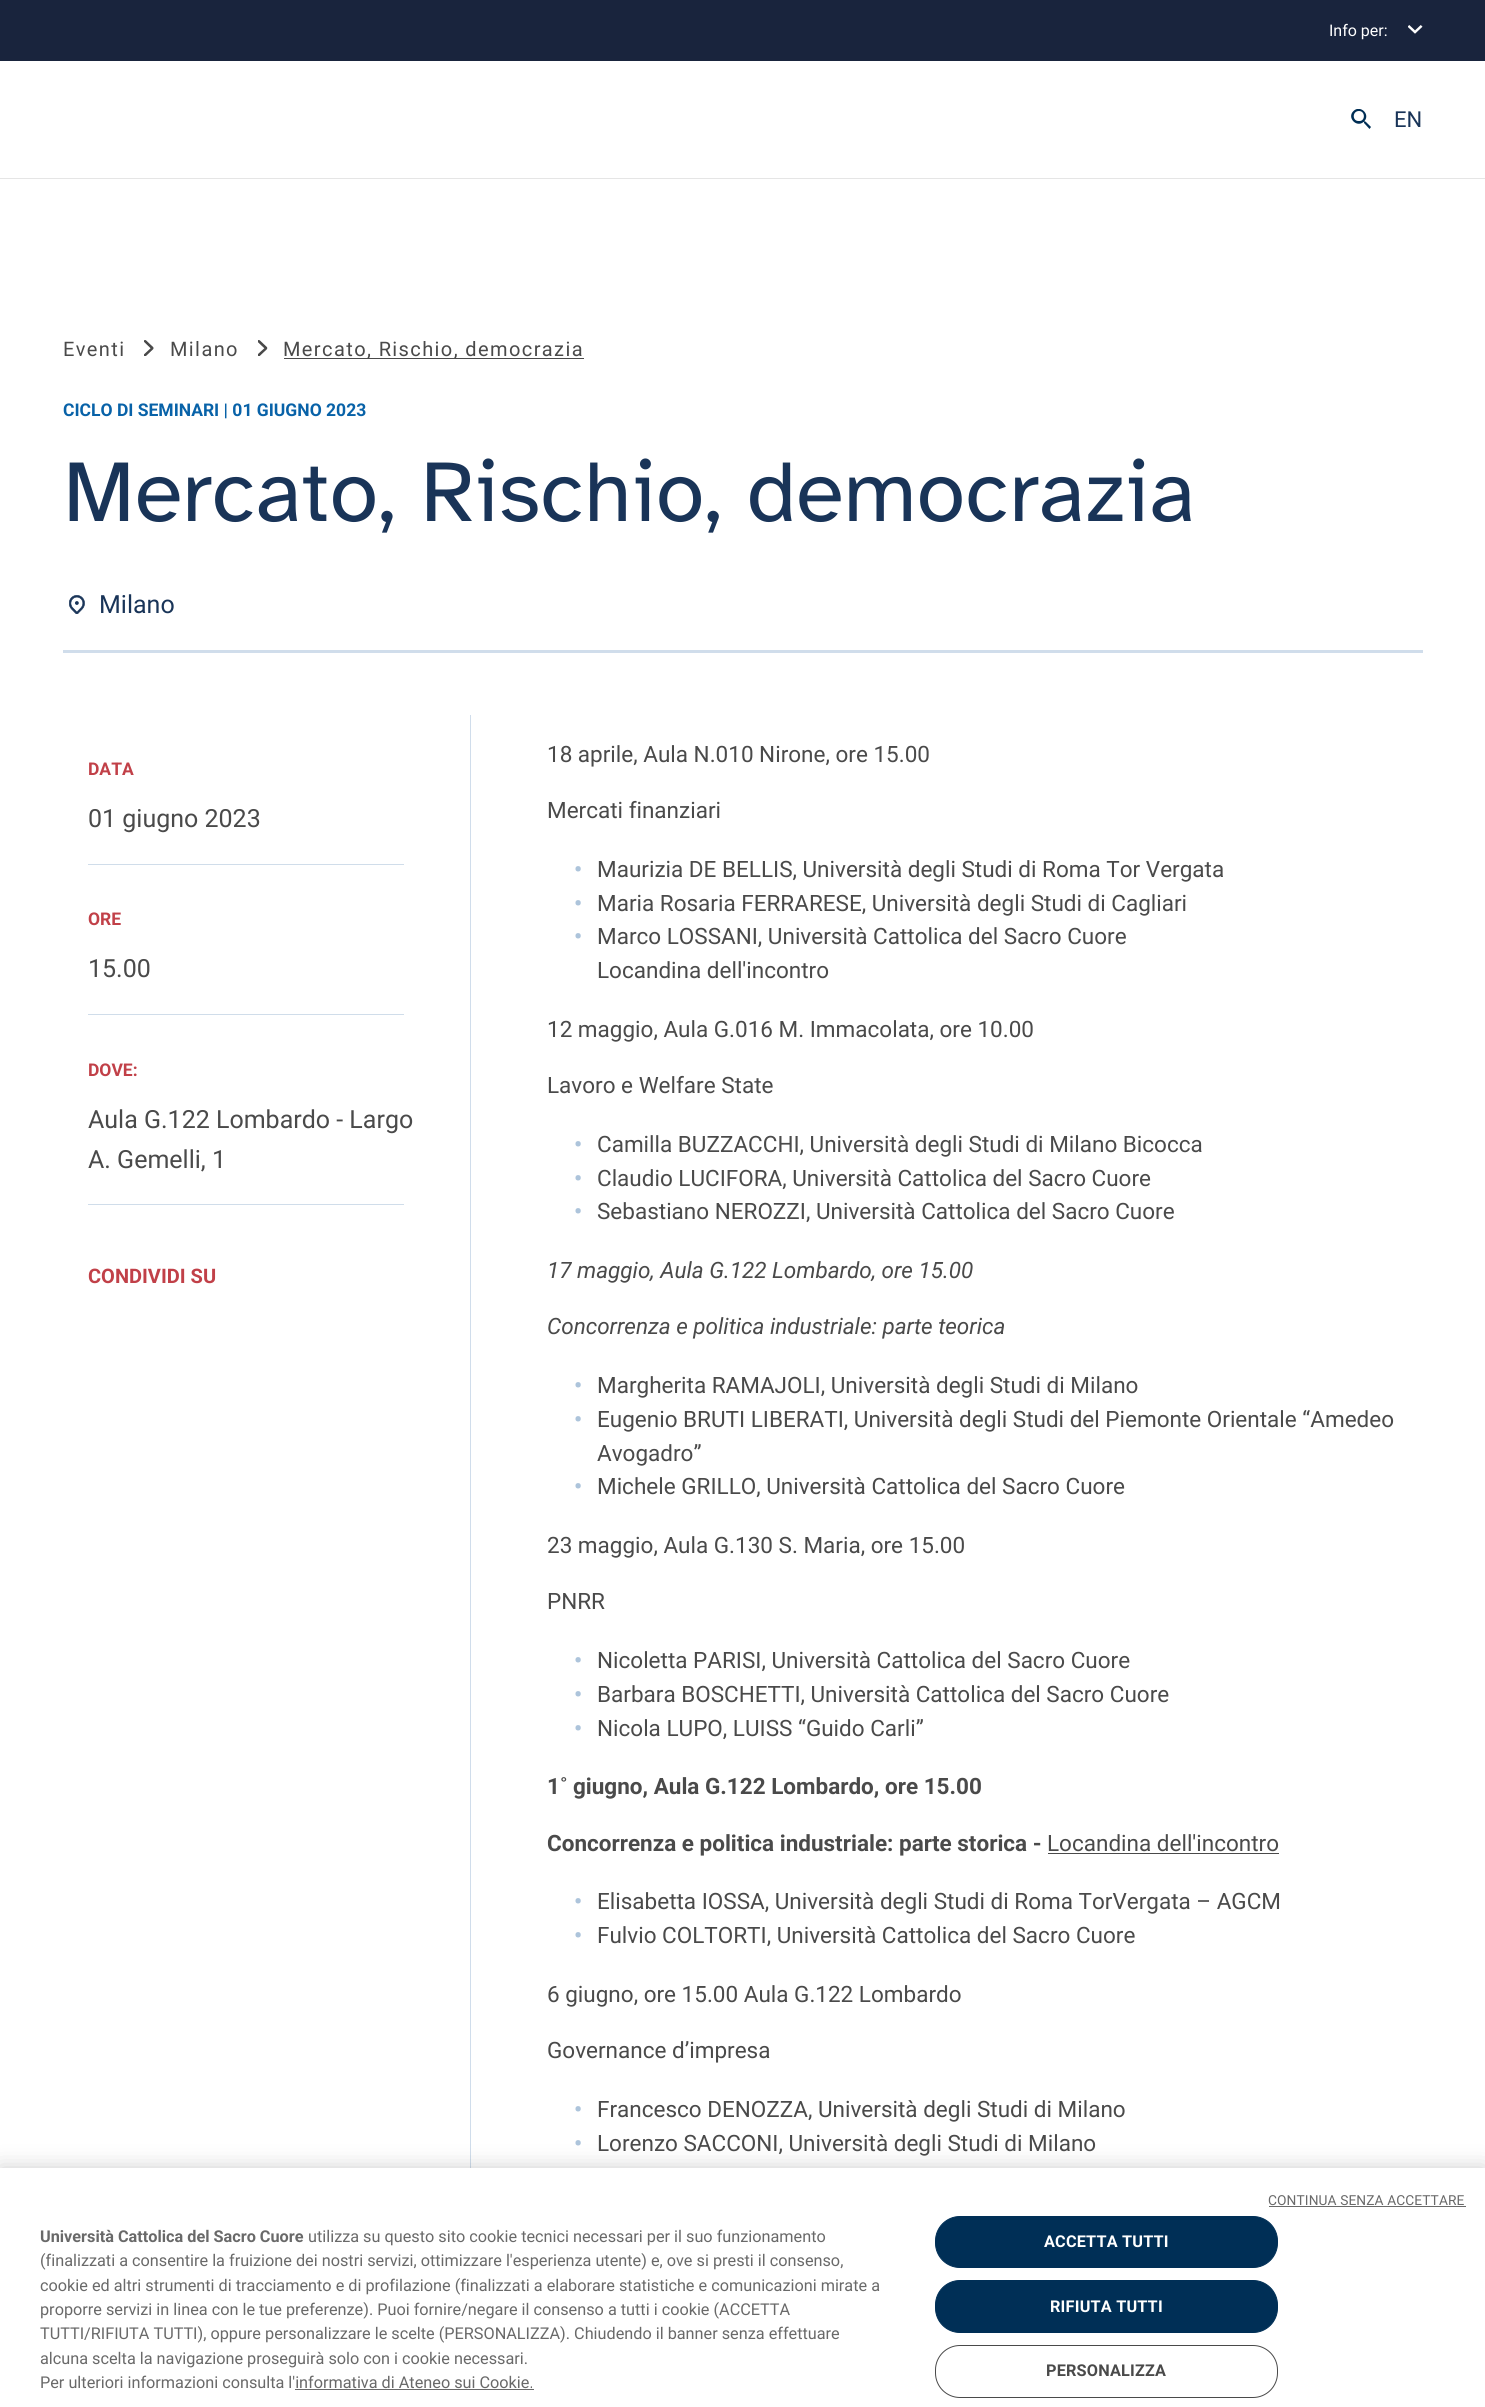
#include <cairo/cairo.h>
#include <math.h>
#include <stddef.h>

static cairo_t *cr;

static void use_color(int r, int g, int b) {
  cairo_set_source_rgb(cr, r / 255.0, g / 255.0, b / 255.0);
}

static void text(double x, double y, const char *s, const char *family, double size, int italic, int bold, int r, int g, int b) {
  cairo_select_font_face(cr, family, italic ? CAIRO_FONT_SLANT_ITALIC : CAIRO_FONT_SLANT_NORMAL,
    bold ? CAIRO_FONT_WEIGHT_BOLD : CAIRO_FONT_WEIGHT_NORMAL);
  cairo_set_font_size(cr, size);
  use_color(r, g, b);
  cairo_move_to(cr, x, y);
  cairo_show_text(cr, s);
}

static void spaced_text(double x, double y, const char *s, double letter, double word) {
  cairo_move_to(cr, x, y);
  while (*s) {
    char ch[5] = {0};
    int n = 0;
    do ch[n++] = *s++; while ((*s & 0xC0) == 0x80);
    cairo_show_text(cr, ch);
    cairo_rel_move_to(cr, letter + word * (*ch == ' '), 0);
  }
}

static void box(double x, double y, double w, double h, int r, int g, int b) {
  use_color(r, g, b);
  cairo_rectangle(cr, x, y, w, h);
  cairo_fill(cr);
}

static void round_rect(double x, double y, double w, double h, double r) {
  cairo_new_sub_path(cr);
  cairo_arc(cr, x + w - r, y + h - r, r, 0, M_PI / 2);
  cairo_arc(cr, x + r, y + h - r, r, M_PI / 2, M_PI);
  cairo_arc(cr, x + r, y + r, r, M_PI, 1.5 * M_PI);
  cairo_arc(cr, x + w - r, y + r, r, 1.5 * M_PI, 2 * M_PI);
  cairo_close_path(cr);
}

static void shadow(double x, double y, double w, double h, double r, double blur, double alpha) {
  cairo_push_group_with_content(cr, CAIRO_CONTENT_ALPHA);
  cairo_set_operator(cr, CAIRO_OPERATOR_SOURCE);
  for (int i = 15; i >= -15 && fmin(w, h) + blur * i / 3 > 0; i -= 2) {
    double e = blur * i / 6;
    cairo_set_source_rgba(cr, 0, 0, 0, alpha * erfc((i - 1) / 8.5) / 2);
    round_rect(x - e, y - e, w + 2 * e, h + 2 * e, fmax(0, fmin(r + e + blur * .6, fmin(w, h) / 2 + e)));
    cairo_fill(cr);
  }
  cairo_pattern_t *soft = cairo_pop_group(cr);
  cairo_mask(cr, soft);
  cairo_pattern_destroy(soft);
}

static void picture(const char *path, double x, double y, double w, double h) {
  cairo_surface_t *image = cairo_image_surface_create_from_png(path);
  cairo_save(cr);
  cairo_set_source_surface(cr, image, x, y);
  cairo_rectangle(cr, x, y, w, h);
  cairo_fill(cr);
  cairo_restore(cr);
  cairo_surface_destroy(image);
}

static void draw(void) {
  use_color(255, 255, 255);
  cairo_paint(cr);
  box(0, 178, 1485, 1, 229, 229, 229);
  box(0, 0, 1485, 61, 25, 36, 61);
  picture("img_01.png", 1408, 25, 15, 9);
  cairo_save(cr);
  cairo_rectangle(cr, 1351, 109, 20, 20);
  cairo_clip(cr);
  use_color(0, 46, 85);
  cairo_set_fill_rule(cr, CAIRO_FILL_RULE_EVEN_ODD);
  cairo_new_path(cr);
  cairo_move_to(cr, 1365.5, 121.5);
  cairo_line_to(cr, 1364.5, 121.5);
  cairo_line_to(cr, 1364.5, 121);
  cairo_curve_to(cr, 1370.5, 114, 1360, 104.5, 1353.5, 111);
  cairo_curve_to(cr, 1346.5, 117.5, 1356.5, 128, 1363.5, 122);
  cairo_line_to(cr, 1364, 122);
  cairo_line_to(cr, 1364, 123);
  cairo_line_to(cr, 1369.5, 129);
  cairo_line_to(cr, 1371, 127);
  cairo_close_path(cr);
  cairo_move_to(cr, 1359, 121);
  cairo_curve_to(cr, 1352, 121.5, 1352, 111, 1359, 111);
  cairo_curve_to(cr, 1365.5, 111, 1365.5, 121.5, 1359, 121);
  cairo_close_path(cr);
  cairo_fill(cr);
  cairo_restore(cr);
  picture("img_02.png", 144, 340, 10, 16);
  picture("img_03.png", 258, 340, 10, 16);
  box(284, 358, 300, 1, 74, 74, 74);
  picture("img_04.png", 69, 595, 16, 19);
  box(63, 650, 1360, 3, 208, 221, 235);
  box(88, 864, 316, 1, 208, 221, 234);
  box(88, 1014, 316, 1, 208, 221, 234);
  box(88, 1204, 316, 1, 208, 221, 234);
  box(470, 715, 1, 1453, 208, 221, 235);
  box(1048, 1853, 231, 1, 74, 74, 74);
  use_color(0, 0, 0);
  shadow(0, 2168, 1485, 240, 0, 11, 0.2);
  box(0, 2168, 1485, 239, 255, 255, 255);
  box(1269, 2206, 197, 1, 105, 105, 105);
  box(295, 2389, 239, 1, 105, 105, 105);
  use_color(0, 47, 86);
  round_rect(935.5, 2216.5, 342, 51, 24.5);
  cairo_fill_preserve(cr);
  cairo_set_line_width(cr, 1);
  cairo_stroke(cr);
  round_rect(935.5, 2280.5, 342, 52, 24.5);
  cairo_fill_preserve(cr);
  cairo_stroke(cr);
  round_rect(935.5, 2345.5, 342, 52, 24.5);
  use_color(74, 74, 74);
  cairo_stroke(cr);
  text(1329, 36, "Info per:", "Roboto", 16, 0, 0, 255, 255, 255);
  text(1394, 127, "EN", "Roboto", 22, 0, 0, 25, 52, 88);
  cairo_set_font_size(cr, 20);
  use_color(74, 74, 74);
  spaced_text(63, 356, "Eventi", 1.4, 0);
  spaced_text(170, 356, "Milano", 1.4, 0);
  spaced_text(283, 356, "Mercato, Rischio, democrazia", 1.4, 0);
  text(63, 416, "CICLO DI SEMINARI | 01 GIUGNO 2023", "Roboto", 17.5, 0, 1, 8, 98, 168);
  text(63, 521, "Mercato, Rischio, democrazia", "Atkinson Hyperlegible", 87.5, 0, 0, 25, 52, 88);
  text(99, 613, "Milano", "Roboto", 25, 0, 0, 25, 52, 88);
  text(88, 775, "DATA", "Roboto", 17.5, 0, 1, 193, 64, 72);
  text(88, 827, "01 giugno 2023", "Roboto", 25, 0, 0, 74, 74, 74);
  text(88, 925, "ORE", "Roboto", 17.5, 0, 1, 193, 64, 72);
  text(88, 977, "15.00", "Roboto", 25, 0, 0, 74, 74, 74);
  text(88, 1076, "DOVE:", "Roboto", 17.5, 0, 1, 193, 64, 72);
  text(88, 1128, "Aula G.122 Lombardo - Largo", "Roboto", 25, 0, 0, 74, 74, 74);
  text(88, 1168, "A. Gemelli, 1", "Roboto", 25, 0, 0, 74, 74, 74);
  text(88, 1283, "CONDIVIDI SU", "Roboto", 20, 0, 1, 193, 64, 72);
  text(547, 762, "18 aprile, Aula N.010 Nirone, ore 15.00", "Roboto", 22.5, 0, 0, 74, 74, 74);
  text(547, 818, "Mercati finanziari", "Roboto", 22.5, 0, 0, 74, 74, 74);
  text(574, 877, "•", "Roboto", 22.5, 0, 1, 173, 196, 219);
  text(597, 877, "Maurizia DE BELLIS, Università degli Studi di Roma Tor Vergata", "Roboto", 22.5, 0, 0, 74, 74, 74);
  text(574, 911, "•", "Roboto", 22.5, 0, 1, 173, 196, 219);
  text(597, 911, "Maria Rosaria FERRARESE, Università degli Studi di Cagliari", "Roboto", 22.5, 0, 0, 74, 74, 74);
  text(574, 944, "•", "Roboto", 22.5, 0, 1, 173, 196, 219);
  text(597, 944, "Marco LOSSANI, Università Cattolica del Sacro Cuore", "Roboto", 22.5, 0, 0, 74, 74, 74);
  text(597, 978, "Locandina dell'incontro", "Roboto", 22.5, 0, 0, 74, 74, 74);
  text(547, 1037, "12 maggio, Aula G.016 M. Immacolata, ore 10.00", "Roboto", 22.5, 0, 0, 74, 74, 74);
  text(547, 1093, "Lavoro e Welfare State", "Roboto", 22.5, 0, 0, 74, 74, 74);
  text(574, 1152, "•", "Roboto", 22.5, 0, 1, 173, 196, 219);
  text(597, 1152, "Camilla BUZZACCHI, Università degli Studi di Milano Bicocca", "Roboto", 22.5, 0, 0, 74, 74, 74);
  text(574, 1186, "•", "Roboto", 22.5, 0, 1, 173, 196, 219);
  text(597, 1186, "Claudio LUCIFORA, Università Cattolica del Sacro Cuore", "Roboto", 22.5, 0, 0, 74, 74, 74);
  text(574, 1219, "•", "Roboto", 22.5, 0, 1, 173, 196, 219);
  text(597, 1219, "Sebastiano NEROZZI, Università Cattolica del Sacro Cuore", "Roboto", 22.5, 0, 0, 74, 74, 74);
  text(547, 1278, "17 maggio, Aula G.122 Lombardo, ore 15.00", "Roboto", 22.5, 1, 0, 74, 74, 74);
  text(547, 1334, "Concorrenza e politica industriale: parte teorica", "Roboto", 22.5, 1, 0, 74, 74, 74);
  text(574, 1393, "•", "Roboto", 22.5, 0, 1, 173, 196, 219);
  text(597, 1393, "Margherita RAMAJOLI, Università degli Studi di Milano", "Roboto", 22.5, 0, 0, 74, 74, 74);
  text(574, 1427, "•", "Roboto", 22.5, 0, 1, 173, 196, 219);
  text(597, 1427, "Eugenio BRUTI LIBERATI, Università degli Studi del Piemonte Orientale “Amedeo", "Roboto", 22.5, 0, 0, 74, 74, 74);
  text(597, 1461, "Avogadro”", "Roboto", 22.5, 0, 0, 74, 74, 74);
  text(574, 1494, "•", "Roboto", 22.5, 0, 1, 173, 196, 219);
  text(597, 1494, "Michele GRILLO, Università Cattolica del Sacro Cuore", "Roboto", 22.5, 0, 0, 74, 74, 74);
  text(547, 1553, "23 maggio, Aula G.130 S. Maria, ore 15.00", "Roboto", 22.5, 0, 0, 74, 74, 74);
  text(547, 1609, "PNRR", "Roboto", 22.5, 0, 0, 74, 74, 74);
  text(574, 1668, "•", "Roboto", 22.5, 0, 1, 173, 196, 219);
  text(597, 1668, "Nicoletta PARISI, Università Cattolica del Sacro Cuore", "Roboto", 22.5, 0, 0, 74, 74, 74);
  text(574, 1702, "•", "Roboto", 22.5, 0, 1, 173, 196, 219);
  text(597, 1702, "Barbara BOSCHETTI, Università Cattolica del Sacro Cuore", "Roboto", 22.5, 0, 0, 74, 74, 74);
  text(574, 1736, "•", "Roboto", 22.5, 0, 1, 173, 196, 219);
  text(597, 1736, "Nicola LUPO, LUISS “Guido Carli”", "Roboto", 22.5, 0, 0, 74, 74, 74);
  text(547, 1794, "1˚ giugno, Aula G.122 Lombardo, ore 15.00", "Roboto", 22.5, 0, 1, 74, 74, 74);
  text(547, 1851, "Concorrenza e politica industriale: parte storica -", "Roboto", 22.5, 0, 1, 74, 74, 74);
  text(1047, 1851, "Locandina dell'incontro", "Roboto", 22.5, 0, 0, 74, 74, 74);
  text(574, 1909, "•", "Roboto", 22.5, 0, 1, 173, 196, 219);
  text(597, 1909, "Elisabetta IOSSA, Università degli Studi di Roma TorVergata – AGCM", "Roboto", 22.5, 0, 0, 74, 74, 74);
  text(574, 1943, "•", "Roboto", 22.5, 0, 1, 173, 196, 219);
  text(597, 1943, "Fulvio COLTORTI, Università Cattolica del Sacro Cuore", "Roboto", 22.5, 0, 0, 74, 74, 74);
  text(547, 2002, "6 giugno, ore 15.00 Aula G.122 Lombardo", "Roboto", 22.5, 0, 0, 74, 74, 74);
  text(547, 2058, "Governance d’impresa", "Roboto", 22.5, 0, 0, 74, 74, 74);
  text(574, 2117, "•", "Roboto", 22.5, 0, 1, 173, 196, 219);
  text(597, 2117, "Francesco DENOZZA, Università degli Studi di Milano", "Roboto", 22.5, 0, 0, 74, 74, 74);
  text(574, 2151, "•", "Roboto", 22.5, 0, 1, 173, 196, 219);
  text(597, 2151, "Lorenzo SACCONI, Università degli Studi di Milano", "Roboto", 22.5, 0, 0, 74, 74, 74);
  cairo_set_font_size(cr, 13.75);
  use_color(105, 105, 105);
  spaced_text(1268, 2205, "CONTINUA SENZA ACCETTARE", 0.1, 0);
  text(40, 2242, "Università Cattolica del Sacro Cuore", "Roboto", 16.25, 0, 1, 105, 105, 105);
  text(308, 2242, "utilizza su questo sito cookie tecnici necessari per il suo funzionamento", "Roboto", 16.25, 0, 0, 105, 105, 105);
  text(40, 2266, "(finalizzati a consentire la fruizione dei nostri servizi, ottimizzare l'esperienza utente) e, ove si presti il consenso,", "Roboto", 16.25, 0, 0, 105, 105, 105);
  text(40, 2291, "cookie ed altri strumenti di tracciamento e di profilazione (finalizzati a elaborare statistiche e comunicazioni mirate a", "Roboto", 16.25, 0, 0, 105, 105, 105);
  text(40, 2315, "proporre servizi in linea con le tue preferenze). Puoi fornire/negare il consenso a tutti i cookie (ACCETTA", "Roboto", 16.25, 0, 0, 105, 105, 105);
  text(40, 2339, "TUTTI/RIFIUTA TUTTI), oppure personalizzare le scelte (PERSONALIZZA). Chiudendo il banner senza effettuare", "Roboto", 16.25, 0, 0, 105, 105, 105);
  text(40, 2364, "alcuna scelta la navigazione proseguirà solo con i cookie necessari.", "Roboto", 16.25, 0, 0, 105, 105, 105);
  text(40, 2388, "Per ulteriori informazioni consulta l'informativa di Ateneo sui Cookie.", "Roboto", 16.25, 0, 0, 105, 105, 105);
  cairo_select_font_face(cr, "Roboto", CAIRO_FONT_SLANT_NORMAL, CAIRO_FONT_WEIGHT_BOLD);
  use_color(255, 255, 255);
  spaced_text(1044, 2247, "ACCETTA TUTTI", 0.2, 0);
  spaced_text(1050, 2312, "RIFIUTA TUTTI", 0.2, 0);
  use_color(74, 74, 74);
  spaced_text(1046, 2376, "PERSONALIZZA", 0.2, 0);
}

int main(void) {
  cairo_surface_t *surface = cairo_image_surface_create(CAIRO_FORMAT_RGB24, 1485, 2407);
  cr = cairo_create(surface);
  cairo_font_options_t *options = cairo_font_options_create();
  cairo_font_options_set_hint_metrics(options, CAIRO_HINT_METRICS_OFF);
  cairo_font_options_set_hint_style(options, CAIRO_HINT_STYLE_NONE);
  cairo_set_font_options(cr, options);
  cairo_set_miter_limit(cr, 4);
  draw();
  cairo_surface_write_to_png(surface, "out.png");
  cairo_font_options_destroy(options);
  cairo_destroy(cr);
  cairo_surface_destroy(surface);
  return 0;
}
